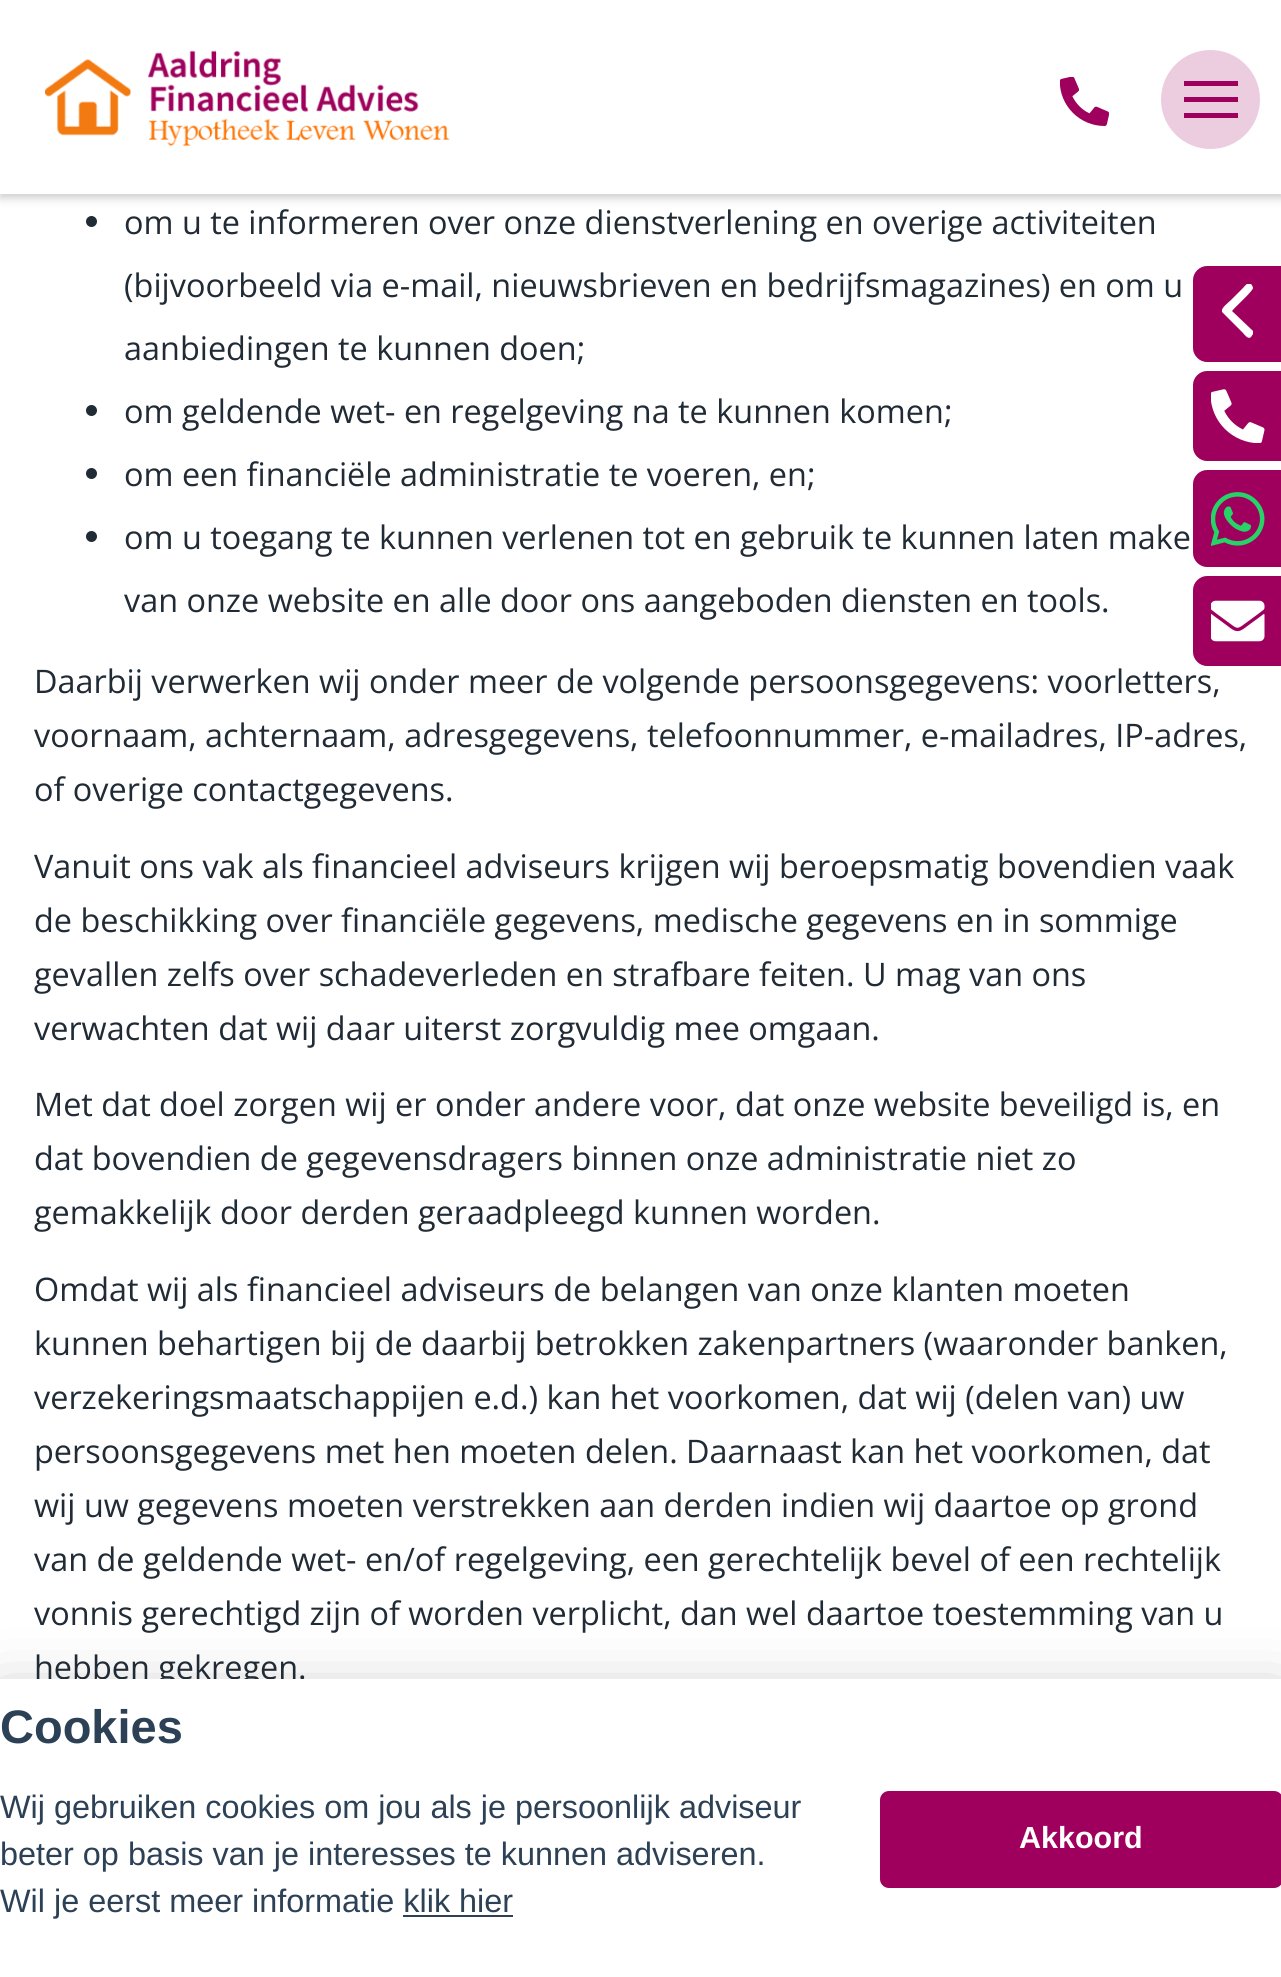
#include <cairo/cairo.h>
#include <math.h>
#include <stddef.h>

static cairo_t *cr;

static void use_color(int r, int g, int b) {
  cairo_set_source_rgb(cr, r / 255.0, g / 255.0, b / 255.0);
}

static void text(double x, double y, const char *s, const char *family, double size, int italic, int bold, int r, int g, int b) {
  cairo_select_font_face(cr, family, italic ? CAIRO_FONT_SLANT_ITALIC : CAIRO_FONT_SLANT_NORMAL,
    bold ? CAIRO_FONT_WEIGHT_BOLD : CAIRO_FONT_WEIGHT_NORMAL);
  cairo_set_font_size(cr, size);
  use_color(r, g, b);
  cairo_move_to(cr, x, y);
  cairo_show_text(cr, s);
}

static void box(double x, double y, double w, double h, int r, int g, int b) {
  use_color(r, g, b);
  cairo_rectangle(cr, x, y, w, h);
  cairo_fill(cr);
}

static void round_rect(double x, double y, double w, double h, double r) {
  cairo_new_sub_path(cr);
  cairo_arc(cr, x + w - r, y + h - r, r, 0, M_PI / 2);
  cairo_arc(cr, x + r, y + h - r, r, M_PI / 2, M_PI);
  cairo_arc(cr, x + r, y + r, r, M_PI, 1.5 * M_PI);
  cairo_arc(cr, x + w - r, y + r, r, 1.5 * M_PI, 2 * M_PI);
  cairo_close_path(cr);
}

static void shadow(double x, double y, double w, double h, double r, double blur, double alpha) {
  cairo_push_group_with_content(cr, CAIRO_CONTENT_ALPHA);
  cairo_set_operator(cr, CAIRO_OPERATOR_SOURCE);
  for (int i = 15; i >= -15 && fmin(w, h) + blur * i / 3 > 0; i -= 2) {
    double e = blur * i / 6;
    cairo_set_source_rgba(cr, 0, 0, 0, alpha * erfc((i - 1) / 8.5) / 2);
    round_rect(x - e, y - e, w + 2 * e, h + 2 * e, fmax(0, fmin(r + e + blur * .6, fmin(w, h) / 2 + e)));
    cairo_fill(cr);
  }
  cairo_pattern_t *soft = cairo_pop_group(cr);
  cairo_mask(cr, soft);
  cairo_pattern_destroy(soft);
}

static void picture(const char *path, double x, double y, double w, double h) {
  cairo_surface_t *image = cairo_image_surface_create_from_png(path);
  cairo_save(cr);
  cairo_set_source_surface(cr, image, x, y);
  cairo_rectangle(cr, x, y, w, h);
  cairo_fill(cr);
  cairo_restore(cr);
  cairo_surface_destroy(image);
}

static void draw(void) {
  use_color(255, 255, 255);
  cairo_paint(cr);
  use_color(0, 0, 0);
  shadow(0, 5, 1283, 193, 0, 4.5, 0.2);
  box(0, 0, 1281, 194, 255, 255, 255);
  picture("img_01.png", 45, 50, 405, 96);
  picture("img_02.png", 1060, 77, 49, 49);
  use_color(236, 204, 223);
  cairo_arc(cr, 1210.5, 99.5, 49.5, 0, 2 * M_PI);
  cairo_fill(cr);
  box(1184, 81, 54, 5, 159, 0, 93);
  box(1184, 97, 54, 5, 159, 0, 93);
  box(1184, 113, 54, 5, 159, 0, 93);
  use_color(33, 43, 54);
  cairo_arc(cr, 91.5, 221.5, 5.5, 0, 2 * M_PI);
  cairo_fill(cr);
  cairo_arc(cr, 91.5, 410.5, 5.5, 0, 2 * M_PI);
  cairo_fill(cr);
  cairo_arc(cr, 91.5, 473.5, 5.5, 0, 2 * M_PI);
  cairo_fill(cr);
  cairo_arc(cr, 91.5, 536.5, 5.5, 0, 2 * M_PI);
  cairo_fill(cr);
  use_color(159, 0, 93);
  cairo_new_path(cr);
  cairo_move_to(cr, 1207, 266);
  cairo_line_to(cr, 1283, 266);
  cairo_line_to(cr, 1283, 362);
  cairo_line_to(cr, 1207, 362);
  cairo_curve_to(cr, 1199.5, 362, 1193, 355.5, 1193, 348);
  cairo_line_to(cr, 1193, 280);
  cairo_curve_to(cr, 1193, 272.5, 1199.5, 266, 1207, 266);
  cairo_close_path(cr);
  cairo_fill(cr);
  cairo_save(cr);
  cairo_rectangle(cr, 1211, 284, 54, 54);
  cairo_clip(cr);
  use_color(255, 255, 255);
  cairo_new_path(cr);
  cairo_move_to(cr, 1232, 311);
  cairo_curve_to(cr, 1235, 307, 1253, 291, 1253, 288);
  cairo_curve_to(cr, 1253, 287, 1252, 285, 1251, 284);
  cairo_curve_to(cr, 1248, 281, 1244, 287, 1243, 288);
  cairo_line_to(cr, 1231, 300);
  cairo_curve_to(cr, 1229, 302, 1221, 308, 1222, 311);
  cairo_line_to(cr, 1222, 312);
  cairo_line_to(cr, 1243, 333);
  cairo_curve_to(cr, 1244, 334, 1248, 340, 1251, 337);
  cairo_line_to(cr, 1253, 334);
  cairo_line_to(cr, 1253, 331);
  cairo_close_path(cr);
  cairo_fill(cr);
  cairo_restore(cr);
  cairo_new_path(cr);
  cairo_move_to(cr, 1207, 371);
  cairo_line_to(cr, 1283, 371);
  cairo_line_to(cr, 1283, 461);
  cairo_line_to(cr, 1207, 461);
  cairo_curve_to(cr, 1199.5, 461, 1193, 454.5, 1193, 447);
  cairo_line_to(cr, 1193, 385);
  cairo_curve_to(cr, 1193, 377.5, 1199.5, 371, 1207, 371);
  cairo_close_path(cr);
  cairo_fill(cr);
  picture("img_03.png", 1211, 389, 54, 54);
  cairo_new_path(cr);
  cairo_move_to(cr, 1207, 470);
  cairo_line_to(cr, 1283, 470);
  cairo_line_to(cr, 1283, 567);
  cairo_line_to(cr, 1207, 567);
  cairo_curve_to(cr, 1199.5, 567, 1193, 560.5, 1193, 553);
  cairo_line_to(cr, 1193, 484);
  cairo_curve_to(cr, 1193, 476.5, 1199.5, 470, 1207, 470);
  cairo_close_path(cr);
  cairo_fill(cr);
  picture("img_04.png", 1211, 492, 54, 54);
  cairo_new_path(cr);
  cairo_move_to(cr, 1207, 576);
  cairo_line_to(cr, 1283, 576);
  cairo_line_to(cr, 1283, 666);
  cairo_line_to(cr, 1207, 666);
  cairo_curve_to(cr, 1199.5, 666, 1193, 659.5, 1193, 652);
  cairo_line_to(cr, 1193, 590);
  cairo_curve_to(cr, 1193, 582.5, 1199.5, 576, 1207, 576);
  cairo_close_path(cr);
  cairo_fill(cr);
  picture("img_05.png", 1211, 600, 54, 42);
  use_color(2, 2, 3);
  shadow(0, 1701, 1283, 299, 0, 34, 0.28);
  text(124, 234, "om u te informeren over onze dienstverlening en overige activiteiten", "Open Sans", 32.4, 0, 0, 33, 43, 54);
  text(124, 297, "(bijvoorbeeld via e-mail, nieuwsbrieven en bedrijfsmagazines) en om u", "Open Sans", 32.4, 0, 0, 33, 43, 54);
  text(124, 360, "aanbiedingen te kunnen doen;", "Open Sans", 32.4, 0, 0, 33, 43, 54);
  text(124, 423, "om geldende wet- en regelgeving na te kunnen komen;", "Open Sans", 32.4, 0, 0, 33, 43, 54);
  text(124, 486, "om een financiële administratie te voeren, en;", "Open Sans", 32.4, 0, 0, 33, 43, 54);
  text(124, 549, "om u toegang te kunnen verlenen tot en gebruik te kunnen laten make", "Open Sans", 32.4, 0, 0, 33, 43, 54);
  text(124, 612, "van onze website en alle door ons aangeboden diensten en tools.", "Open Sans", 32.4, 0, 0, 33, 43, 54);
  text(34, 693, "Daarbij verwerken wij onder meer de volgende persoonsgegevens: voorletters,", "Open Sans", 32.4, 0, 0, 33, 43, 54);
  text(34, 747, "voornaam, achternaam, adresgegevens, telefoonnummer, e-mailadres, IP-adres,", "Open Sans", 32.4, 0, 0, 33, 43, 54);
  text(34, 801, "of overige contactgegevens.", "Open Sans", 32.4, 0, 0, 33, 43, 54);
  text(34, 878, "Vanuit ons vak als financieel adviseurs krijgen wij beroepsmatig bovendien vaak", "Open Sans", 32.4, 0, 0, 33, 43, 54);
  text(34, 932, "de beschikking over financiële gegevens, medische gegevens en in sommige", "Open Sans", 32.4, 0, 0, 33, 43, 54);
  text(34, 986, "gevallen zelfs over schadeverleden en strafbare feiten. U mag van ons", "Open Sans", 32.4, 0, 0, 33, 43, 54);
  text(34, 1040, "verwachten dat wij daar uiterst zorgvuldig mee omgaan.", "Open Sans", 32.4, 0, 0, 33, 43, 54);
  text(34, 1116, "Met dat doel zorgen wij er onder andere voor, dat onze website beveiligd is, en", "Open Sans", 32.4, 0, 0, 33, 43, 54);
  text(34, 1170, "dat bovendien de gegevensdragers binnen onze administratie niet zo", "Open Sans", 32.4, 0, 0, 33, 43, 54);
  text(34, 1224, "gemakkelijk door derden geraadpleegd kunnen worden.", "Open Sans", 32.4, 0, 0, 33, 43, 54);
  text(34, 1301, "Omdat wij als financieel adviseurs de belangen van onze klanten moeten", "Open Sans", 32.4, 0, 0, 33, 43, 54);
  text(34, 1355, "kunnen behartigen bij de daarbij betrokken zakenpartners (waaronder banken,", "Open Sans", 32.4, 0, 0, 33, 43, 54);
  text(34, 1409, "verzekeringsmaatschappijen e.d.) kan het voorkomen, dat wij (delen van) uw", "Open Sans", 32.4, 0, 0, 33, 43, 54);
  text(34, 1463, "persoonsgegevens met hen moeten delen. Daarnaast kan het voorkomen, dat", "Open Sans", 32.4, 0, 0, 33, 43, 54);
  text(34, 1517, "wij uw gegevens moeten verstrekken aan derden indien wij daartoe op grond", "Open Sans", 32.4, 0, 0, 33, 43, 54);
  text(34, 1571, "van de geldende wet- en/of regelgeving, een gerechtelijk bevel of een rechtelijk", "Open Sans", 32.4, 0, 0, 33, 43, 54);
  text(34, 1625, "vonnis gerechtigd zijn of worden verplicht, dan wel daartoe toestemming van u", "Open Sans", 32.4, 0, 0, 33, 43, 54);
  text(34, 1679, "hebben gekregen.", "Open Sans", 32.4, 0, 0, 33, 43, 54);
  box(0, 1679, 1281, 298, 255, 255, 255);
  text(0, 1743, "Cookies", "Liberation Sans", 47, 0, 1, 45, 65, 86);
  text(0, 1818, "Wij gebruiken cookies om jou als je persoonlijk adviseur", "Liberation Sans", 32.4, 0, 0, 45, 65, 86);
  text(0, 1865, "beter op basis van je interesses te kunnen adviseren.", "Liberation Sans", 32.4, 0, 0, 45, 65, 86);
  text(0, 1912, "Wil je eerst meer informatie klik hier", "Liberation Sans", 32.4, 0, 0, 45, 65, 86);
  box(403, 1915, 110, 2, 45, 65, 86);
  use_color(159, 0, 93);
  round_rect(880, 1791, 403, 97, 9);
  cairo_fill(cr);
  text(1019, 1848, "Akkoord", "Liberation Sans", 30.5, 0, 1, 255, 255, 255);
}

int main(void) {
  cairo_surface_t *surface = cairo_image_surface_create(CAIRO_FORMAT_RGB24, 1281, 1977);
  cr = cairo_create(surface);
  cairo_font_options_t *options = cairo_font_options_create();
  cairo_font_options_set_hint_metrics(options, CAIRO_HINT_METRICS_OFF);
  cairo_font_options_set_hint_style(options, CAIRO_HINT_STYLE_NONE);
  cairo_set_font_options(cr, options);
  cairo_set_miter_limit(cr, 4);
  draw();
  cairo_surface_write_to_png(surface, "out.png");
  cairo_font_options_destroy(options);
  cairo_destroy(cr);
  cairo_surface_destroy(surface);
  return 0;
}
